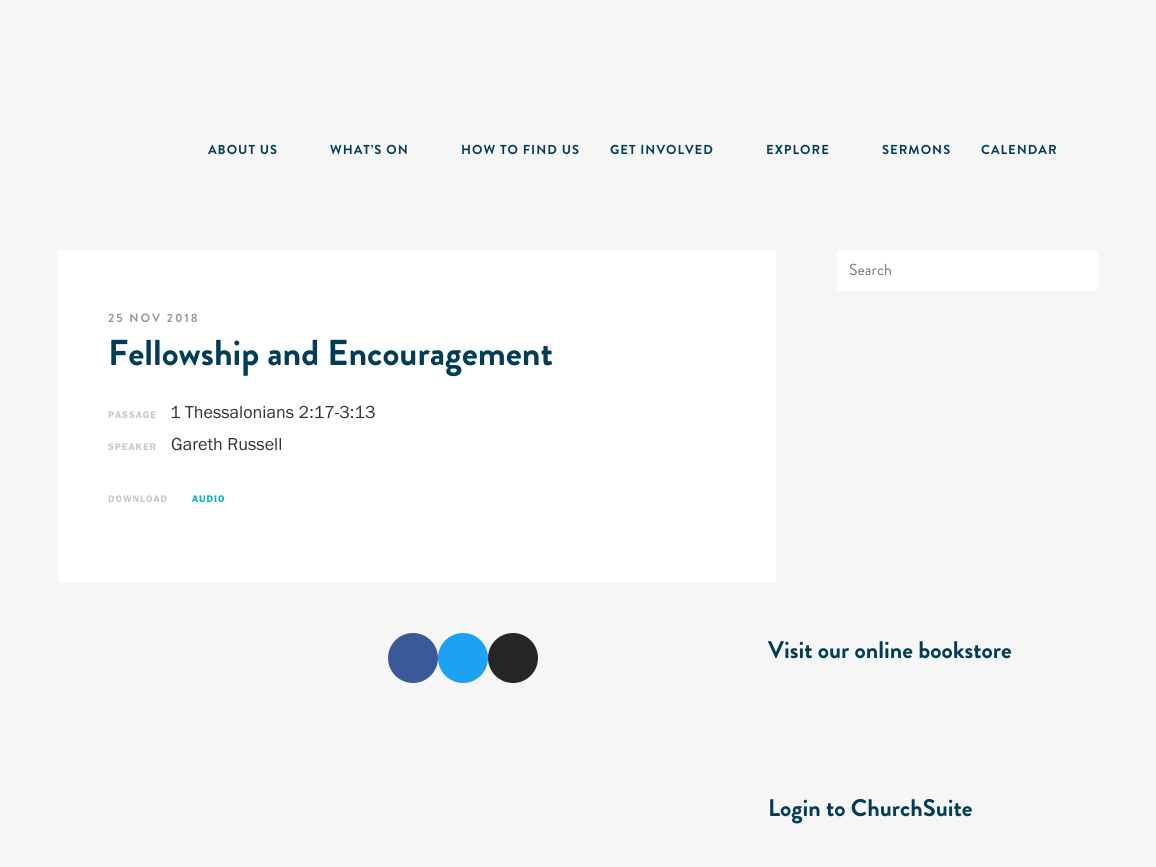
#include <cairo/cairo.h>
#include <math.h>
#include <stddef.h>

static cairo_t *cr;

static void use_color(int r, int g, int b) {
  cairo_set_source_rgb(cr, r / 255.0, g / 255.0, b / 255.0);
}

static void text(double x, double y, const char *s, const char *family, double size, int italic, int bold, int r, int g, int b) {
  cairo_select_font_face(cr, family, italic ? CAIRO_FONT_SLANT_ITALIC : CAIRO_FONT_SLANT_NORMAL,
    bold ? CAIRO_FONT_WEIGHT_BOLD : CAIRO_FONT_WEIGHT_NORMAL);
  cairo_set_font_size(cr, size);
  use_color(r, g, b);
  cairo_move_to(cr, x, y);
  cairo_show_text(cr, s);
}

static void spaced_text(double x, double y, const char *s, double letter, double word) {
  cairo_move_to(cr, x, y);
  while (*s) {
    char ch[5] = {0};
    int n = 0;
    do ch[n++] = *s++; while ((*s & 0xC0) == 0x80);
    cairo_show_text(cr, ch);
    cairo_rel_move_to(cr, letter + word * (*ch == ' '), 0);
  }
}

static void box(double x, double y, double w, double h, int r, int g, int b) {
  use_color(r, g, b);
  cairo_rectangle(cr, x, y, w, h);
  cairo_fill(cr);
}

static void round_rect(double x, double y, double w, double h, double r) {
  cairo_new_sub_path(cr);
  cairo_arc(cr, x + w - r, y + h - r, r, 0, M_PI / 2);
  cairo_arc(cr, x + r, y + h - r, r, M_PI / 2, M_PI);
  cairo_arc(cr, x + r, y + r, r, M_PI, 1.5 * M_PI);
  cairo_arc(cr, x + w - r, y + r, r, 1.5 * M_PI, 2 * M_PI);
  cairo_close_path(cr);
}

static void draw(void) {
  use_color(246, 246, 246);
  cairo_paint(cr);
  use_color(255, 255, 255);
  round_rect(837, 250, 261, 41, 3);
  cairo_fill(cr);
  box(806, 250, 1, 333, 241, 241, 241);
  box(58, 250, 718, 333, 255, 255, 255);
  use_color(59, 89, 152);
  cairo_arc(cr, 413, 658, 25, 0, 2 * M_PI);
  cairo_fill(cr);
  use_color(29, 161, 242);
  cairo_arc(cr, 463, 658, 25, 0, 2 * M_PI);
  cairo_fill(cr);
  use_color(38, 38, 38);
  cairo_arc(cr, 513, 658, 25, 0, 2 * M_PI);
  cairo_fill(cr);
  cairo_select_font_face(cr, "Brandon Grotesque", CAIRO_FONT_SLANT_NORMAL, CAIRO_FONT_WEIGHT_BOLD);
  cairo_set_font_size(cr, 13);
  use_color(2, 61, 87);
  spaced_text(208, 154, "ABOUT US", 1, 0);
  spaced_text(330, 154, "WHAT’S ON", 1, 0);
  spaced_text(461, 154, "HOW TO FIND US", 1, 0);
  spaced_text(610, 154, "GET INVOLVED", 1, 0);
  spaced_text(766, 154, "EXPLORE", 1, 0);
  spaced_text(882, 154, "SERMONS", 1, 0);
  spaced_text(981, 154, "CALENDAR", 1, 0);
  text(849, 275, "Search", "Brandon Grotesque", 16, 0, 0, 117, 117, 117);
  cairo_select_font_face(cr, "Brandon Grotesque", CAIRO_FONT_SLANT_NORMAL, CAIRO_FONT_WEIGHT_BOLD);
  cairo_set_font_size(cr, 12);
  use_color(153, 153, 153);
  spaced_text(108, 322, "25 NOV 2018", 2, 0);
  text(108, 365, "Fellowship and Encouragement", "Brandon Grotesque", 36, 0, 1, 2, 61, 87);
  cairo_select_font_face(cr, "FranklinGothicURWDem", CAIRO_FONT_SLANT_NORMAL, CAIRO_FONT_WEIGHT_NORMAL);
  cairo_set_font_size(cr, 10);
  use_color(199, 199, 199);
  spaced_text(108, 418, "PASSAGE", 1, 0);
  text(170, 418, "1 Thessalonians 2:17-3:13", "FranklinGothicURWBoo", 18, 0, 0, 51, 51, 51);
  cairo_select_font_face(cr, "FranklinGothicURWDem", CAIRO_FONT_SLANT_NORMAL, CAIRO_FONT_WEIGHT_NORMAL);
  cairo_set_font_size(cr, 10);
  use_color(199, 199, 199);
  spaced_text(108, 450, "SPEAKER", 1, 0);
  text(171, 450, "Gareth Russell", "FranklinGothicURWBoo", 18, 0, 0, 51, 51, 51);
  cairo_select_font_face(cr, "FranklinGothicURWDem", CAIRO_FONT_SLANT_NORMAL, CAIRO_FONT_WEIGHT_NORMAL);
  cairo_set_font_size(cr, 10);
  use_color(199, 199, 199);
  spaced_text(108, 502, "DOWNLOAD", 1, 0);
  use_color(6, 176, 172);
  spaced_text(192, 502, "AUDIO", 1, 0);
  text(768, 658, "Visit our online bookstore", "Brandon Grotesque", 24, 0, 1, 2, 61, 87);
  text(768, 816, "Login to ChurchSuite", "Brandon Grotesque", 24, 0, 1, 2, 61, 87);
}

int main(void) {
  cairo_surface_t *surface = cairo_image_surface_create(CAIRO_FORMAT_RGB24, 1156, 867);
  cr = cairo_create(surface);
  cairo_font_options_t *options = cairo_font_options_create();
  cairo_font_options_set_hint_metrics(options, CAIRO_HINT_METRICS_OFF);
  cairo_font_options_set_hint_style(options, CAIRO_HINT_STYLE_NONE);
  cairo_set_font_options(cr, options);
  cairo_set_miter_limit(cr, 4);
  draw();
  cairo_surface_write_to_png(surface, "out.png");
  cairo_font_options_destroy(options);
  cairo_destroy(cr);
  cairo_surface_destroy(surface);
  return 0;
}
